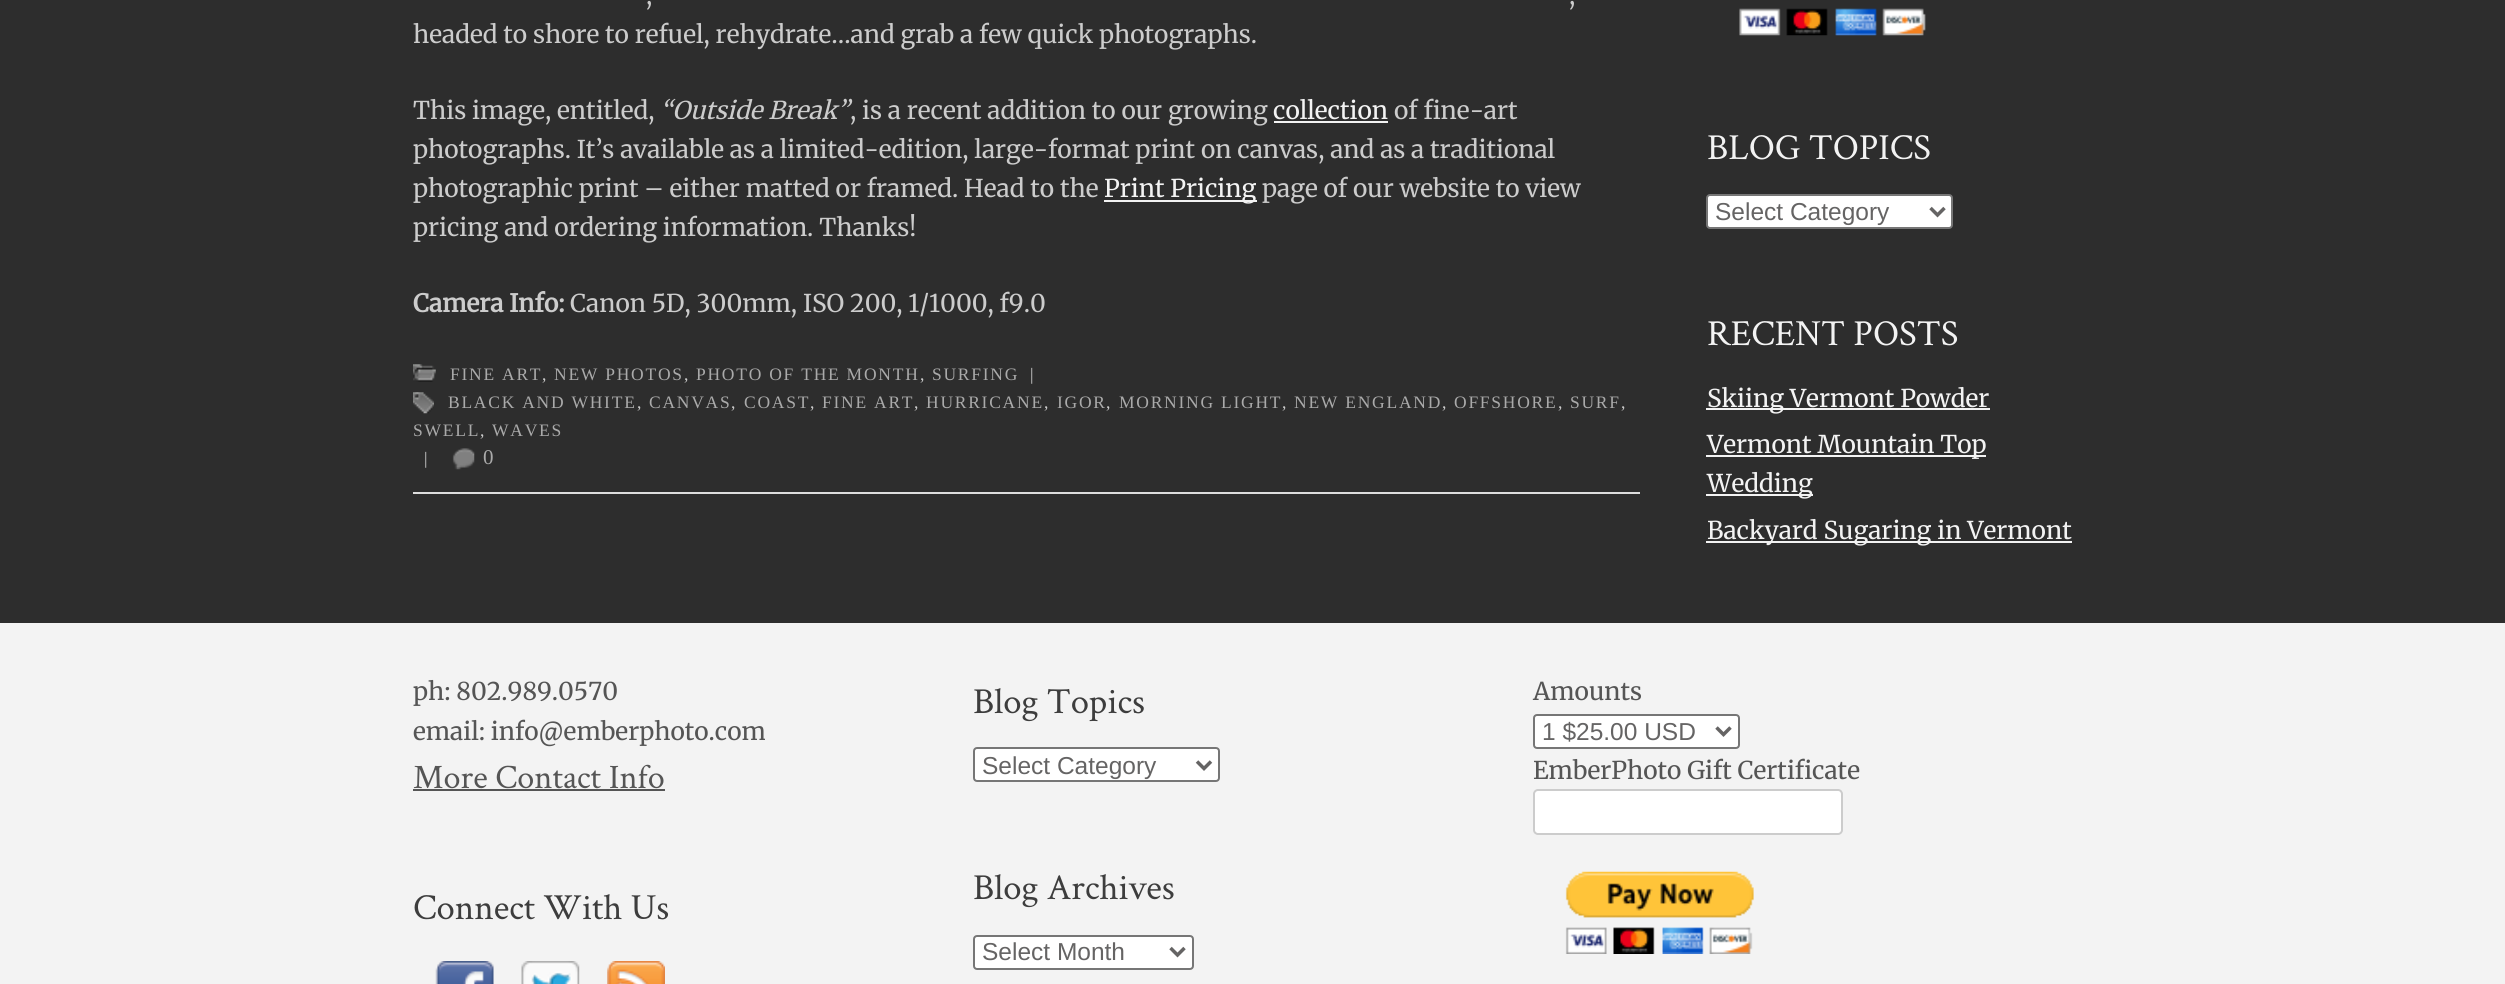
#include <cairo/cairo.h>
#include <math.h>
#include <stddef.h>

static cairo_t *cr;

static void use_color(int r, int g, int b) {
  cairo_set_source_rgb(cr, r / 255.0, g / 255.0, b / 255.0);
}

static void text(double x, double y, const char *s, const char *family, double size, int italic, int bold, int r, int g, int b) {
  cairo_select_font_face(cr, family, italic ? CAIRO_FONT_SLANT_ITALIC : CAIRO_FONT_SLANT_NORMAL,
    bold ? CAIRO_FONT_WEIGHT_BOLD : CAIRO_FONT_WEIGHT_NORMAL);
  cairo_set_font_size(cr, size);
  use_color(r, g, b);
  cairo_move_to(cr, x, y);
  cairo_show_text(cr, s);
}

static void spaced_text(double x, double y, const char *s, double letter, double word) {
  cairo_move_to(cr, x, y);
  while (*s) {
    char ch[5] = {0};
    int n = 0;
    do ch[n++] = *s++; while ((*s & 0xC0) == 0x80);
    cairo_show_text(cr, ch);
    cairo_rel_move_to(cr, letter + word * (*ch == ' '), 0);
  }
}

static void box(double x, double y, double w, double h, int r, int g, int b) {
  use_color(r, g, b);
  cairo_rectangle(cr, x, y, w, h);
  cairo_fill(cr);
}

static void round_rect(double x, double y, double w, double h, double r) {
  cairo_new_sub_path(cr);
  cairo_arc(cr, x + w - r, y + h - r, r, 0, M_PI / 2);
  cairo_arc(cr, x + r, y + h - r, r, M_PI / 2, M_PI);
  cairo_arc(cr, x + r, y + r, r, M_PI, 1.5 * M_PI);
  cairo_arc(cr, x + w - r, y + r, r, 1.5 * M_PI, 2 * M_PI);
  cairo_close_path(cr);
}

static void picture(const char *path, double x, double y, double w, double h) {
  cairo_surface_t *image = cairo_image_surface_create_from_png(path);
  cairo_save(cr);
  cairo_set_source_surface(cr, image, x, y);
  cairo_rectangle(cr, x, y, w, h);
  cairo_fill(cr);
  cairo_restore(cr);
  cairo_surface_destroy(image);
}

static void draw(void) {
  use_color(45, 45, 45);
  cairo_paint(cr);
  box(413, 492, 1227, 2, 221, 221, 221);
  box(1274, 121, 114, 2, 243, 243, 243);
  box(1104, 200, 153, 2, 243, 243, 243);
  picture("img_01.png", 413, 364, 23, 18);
  picture("img_02.png", 413, 392, 21, 22);
  picture("img_03.png", 452, 448, 23, 22);
  picture("img_04.png", 1739, 8, 187, 28);
  use_color(255, 255, 255);
  round_rect(1707, 195, 245, 33, 3);
  cairo_fill_preserve(cr);
  use_color(118, 118, 118);
  cairo_stroke(cr);
  cairo_new_path(cr);
  cairo_move_to(cr, 1930.5, 208);
  cairo_line_to(cr, 1937.5, 215);
  cairo_line_to(cr, 1944.5, 208);
  use_color(101, 100, 100);
  cairo_set_line_width(cr, 3.5);
  cairo_stroke(cr);
  box(1706, 408, 284, 2, 243, 243, 243);
  box(1706, 455, 280, 2, 243, 243, 243);
  box(1706, 494, 107, 2, 243, 243, 243);
  box(1706, 541, 366, 2, 243, 243, 243);
  box(0, 623, 2505, 361, 243, 243, 243);
  box(413, 789, 252, 2, 85, 85, 85);
  picture("img_05.png", 435, 961, 59, 23);
  picture("img_06.png", 521, 961, 59, 23);
  picture("img_07.png", 607, 961, 58, 23);
  use_color(255, 255, 255);
  round_rect(974, 748, 245, 33, 3);
  cairo_fill_preserve(cr);
  use_color(118, 118, 118);
  cairo_set_line_width(cr, 2);
  cairo_stroke(cr);
  cairo_new_path(cr);
  cairo_move_to(cr, 1197, 761.5);
  cairo_line_to(cr, 1204, 768.5);
  cairo_line_to(cr, 1211, 761.5);
  use_color(101, 100, 100);
  cairo_set_line_width(cr, 3.5);
  cairo_stroke(cr);
  use_color(255, 255, 255);
  round_rect(974, 936, 219, 33, 3);
  cairo_fill_preserve(cr);
  use_color(118, 118, 118);
  cairo_set_line_width(cr, 2);
  cairo_stroke(cr);
  cairo_new_path(cr);
  cairo_move_to(cr, 1170.5, 948);
  cairo_line_to(cr, 1177.5, 955);
  cairo_line_to(cr, 1184.5, 948);
  use_color(101, 100, 100);
  cairo_set_line_width(cr, 3.5);
  cairo_stroke(cr);
  use_color(255, 255, 255);
  round_rect(1534, 715, 205, 33, 3);
  cairo_fill_preserve(cr);
  use_color(118, 118, 118);
  cairo_set_line_width(cr, 2);
  cairo_stroke(cr);
  cairo_new_path(cr);
  cairo_move_to(cr, 1716.5, 727.5);
  cairo_line_to(cr, 1723.5, 734.5);
  cairo_line_to(cr, 1730.5, 727.5);
  use_color(101, 100, 100);
  cairo_set_line_width(cr, 3.5);
  cairo_stroke(cr);
  use_color(255, 255, 255);
  round_rect(1534, 790, 308, 44, 4);
  cairo_fill_preserve(cr);
  use_color(204, 204, 204);
  cairo_set_line_width(cr, 2);
  cairo_stroke(cr);
  picture("img_08.png", 1565, 871, 189, 83);
  text(646, 4, ",", "Merriweather", 24.5, 0, 0, 204, 204, 204);
  text(1569, 4, ",", "Merriweather", 24.5, 0, 0, 204, 204, 204);
  text(413, 43, "headed to shore to refuel, rehydrate…and grab a few quick photographs.", "Merriweather", 24.5, 0, 0, 204, 204, 204);
  text(413, 119, "This image, entitled,", "Merriweather", 24.5, 0, 0, 204, 204, 204);
  text(660, 119, "“Outside Break”", "Merriweather", 24.5, 1, 0, 204, 204, 204);
  text(850, 119, ", is a recent addition to our growing", "Merriweather", 24.5, 0, 0, 204, 204, 204);
  text(1273, 119, "collection", "Merriweather", 24.5, 0, 0, 243, 243, 243);
  text(1394, 119, "of fine-art", "Merriweather", 24.5, 0, 0, 204, 204, 204);
  text(413, 158, "photographs. It’s available as a limited-edition, large-format print on canvas, and as a traditional", "Merriweather", 24.5, 0, 0, 204, 204, 204);
  text(413, 197, "photographic print – either matted or framed. Head to the", "Merriweather", 24.5, 0, 0, 204, 204, 204);
  text(1104, 197, "Print Pricing", "Merriweather", 24.5, 0, 0, 243, 243, 243);
  text(1262, 197, "page of our website to view", "Merriweather", 24.5, 0, 0, 204, 204, 204);
  text(413, 236, "pricing and ordering information. Thanks!", "Merriweather", 24.5, 0, 0, 204, 204, 204);
  text(413, 312, "Camera Info:", "Merriweather", 24.5, 0, 1, 204, 204, 204);
  text(570, 312, "Canon 5D, 300mm, ISO 200, 1/1000, f9.0", "Merriweather", 24.5, 0, 0, 204, 204, 204);
  cairo_select_font_face(cr, "Liberation Serif", CAIRO_FONT_SLANT_NORMAL, CAIRO_FONT_WEIGHT_NORMAL);
  cairo_set_font_size(cr, 17.5);
  use_color(170, 170, 170);
  spaced_text(450, 380, "FINE ART", 1.75, 0);
  use_color(204, 204, 204);
  spaced_text(542, 380, ",", 1.75, 0);
  use_color(170, 170, 170);
  spaced_text(554, 380, "NEW PHOTOS", 1.75, 0);
  use_color(204, 204, 204);
  spaced_text(684, 380, ",", 1.75, 0);
  use_color(170, 170, 170);
  spaced_text(696, 380, "PHOTO OF THE MONTH", 1.75, 0);
  use_color(204, 204, 204);
  spaced_text(920, 380, ",", 1.75, 0);
  use_color(170, 170, 170);
  spaced_text(932, 380, "SURFING", 1.75, 0);
  use_color(204, 204, 204);
  spaced_text(1030, 380, "|", 1.75, 0);
  use_color(170, 170, 170);
  spaced_text(448, 408, "BLACK AND WHITE", 1.75, 0);
  use_color(204, 204, 204);
  spaced_text(637, 408, ",", 1.75, 0);
  use_color(170, 170, 170);
  spaced_text(649, 408, "CANVAS", 1.75, 0);
  use_color(204, 204, 204);
  spaced_text(731, 408, ",", 1.75, 0);
  use_color(170, 170, 170);
  spaced_text(744, 408, "COAST", 1.75, 0);
  use_color(204, 204, 204);
  spaced_text(810, 408, ",", 1.75, 0);
  use_color(170, 170, 170);
  spaced_text(822, 408, "FINE ART", 1.75, 0);
  use_color(204, 204, 204);
  spaced_text(914, 408, ",", 1.75, 0);
  use_color(170, 170, 170);
  spaced_text(926, 408, "HURRICANE", 1.75, 0);
  use_color(204, 204, 204);
  spaced_text(1044, 408, ",", 1.75, 0);
  use_color(170, 170, 170);
  spaced_text(1057, 408, "IGOR", 1.75, 0);
  use_color(204, 204, 204);
  spaced_text(1106, 408, ",", 1.75, 0);
  use_color(170, 170, 170);
  spaced_text(1119, 408, "MORNING LIGHT", 1.75, 0);
  use_color(204, 204, 204);
  spaced_text(1282, 408, ",", 1.75, 0);
  use_color(170, 170, 170);
  spaced_text(1294, 408, "NEW ENGLAND", 1.75, 0);
  use_color(204, 204, 204);
  spaced_text(1442, 408, ",", 1.75, 0);
  use_color(170, 170, 170);
  spaced_text(1454, 408, "OFFSHORE", 1.75, 0);
  use_color(204, 204, 204);
  spaced_text(1558, 408, ",", 1.75, 0);
  use_color(170, 170, 170);
  spaced_text(1570, 408, "SURF", 1.75, 0);
  use_color(204, 204, 204);
  spaced_text(1621, 408, ",", 1.75, 0);
  use_color(170, 170, 170);
  spaced_text(413, 436, "SWELL", 1.75, 0);
  use_color(204, 204, 204);
  spaced_text(480, 436, ",", 1.75, 0);
  use_color(170, 170, 170);
  spaced_text(492, 436, "WAVES", 1.75, 0);
  use_color(204, 204, 204);
  spaced_text(424, 464, "|", 1.75, 0);
  cairo_set_font_size(cr, 21);
  use_color(170, 170, 170);
  spaced_text(483, 464, "0", 1.75, 0);
  text(1707, 159, "BLOG TOPICS", "Crimson Text", 36.75, 0, 0, 243, 243, 243);
  text(1715, 220, "Select Category", "Liberation Sans", 24.5, 0, 0, 101, 100, 100);
  text(1707, 345, "RECENT POSTS", "Crimson Text", 36.75, 0, 0, 243, 243, 243);
  text(1707, 407, "Skiing Vermont Powder", "Merriweather", 24.5, 0, 0, 243, 243, 243);
  text(1707, 453, "Vermont Mountain Top", "Merriweather", 24.5, 0, 0, 243, 243, 243);
  text(1707, 492, "Wedding", "Merriweather", 24.5, 0, 0, 243, 243, 243);
  text(1707, 539, "Backyard Sugaring in Vermont", "Merriweather", 24.5, 0, 0, 243, 243, 243);
  text(413, 700, "ph: 802.989.0570", "Merriweather", 24.5, 0, 0, 85, 85, 85);
  text(413, 740, "email: info@emberphoto.com", "Merriweather", 24.5, 0, 0, 85, 85, 85);
  text(413, 788, "More Contact Info", "Crimson Text", 34.25, 0, 0, 85, 85, 85);
  text(413, 919, "Connect With Us", "Crimson Text", 36.75, 0, 0, 61, 61, 61);
  text(973, 713, "Blog Topics", "Crimson Text", 36.75, 0, 0, 61, 61, 61);
  text(982, 774, "Select Category", "Liberation Sans", 24.5, 0, 0, 101, 100, 100);
  text(973, 899, "Blog Archives", "Crimson Text", 36.75, 0, 0, 61, 61, 61);
  text(982, 960, "Select Month", "Liberation Sans", 24.5, 0, 0, 101, 100, 100);
  text(1533, 700, "Amounts", "Merriweather", 24.5, 0, 0, 85, 85, 85);
  text(1542, 740, "1 $25.00 USD", "Liberation Sans", 24.5, 0, 0, 101, 100, 100);
  text(1533, 779, "EmberPhoto Gift Certificate", "Merriweather", 24.5, 0, 0, 85, 85, 85);
}

int main(void) {
  cairo_surface_t *surface = cairo_image_surface_create(CAIRO_FORMAT_RGB24, 2505, 984);
  cr = cairo_create(surface);
  cairo_font_options_t *options = cairo_font_options_create();
  cairo_font_options_set_hint_metrics(options, CAIRO_HINT_METRICS_OFF);
  cairo_font_options_set_hint_style(options, CAIRO_HINT_STYLE_NONE);
  cairo_set_font_options(cr, options);
  cairo_set_miter_limit(cr, 4);
  draw();
  cairo_surface_write_to_png(surface, "out.png");
  cairo_font_options_destroy(options);
  cairo_destroy(cr);
  cairo_surface_destroy(surface);
  return 0;
}
